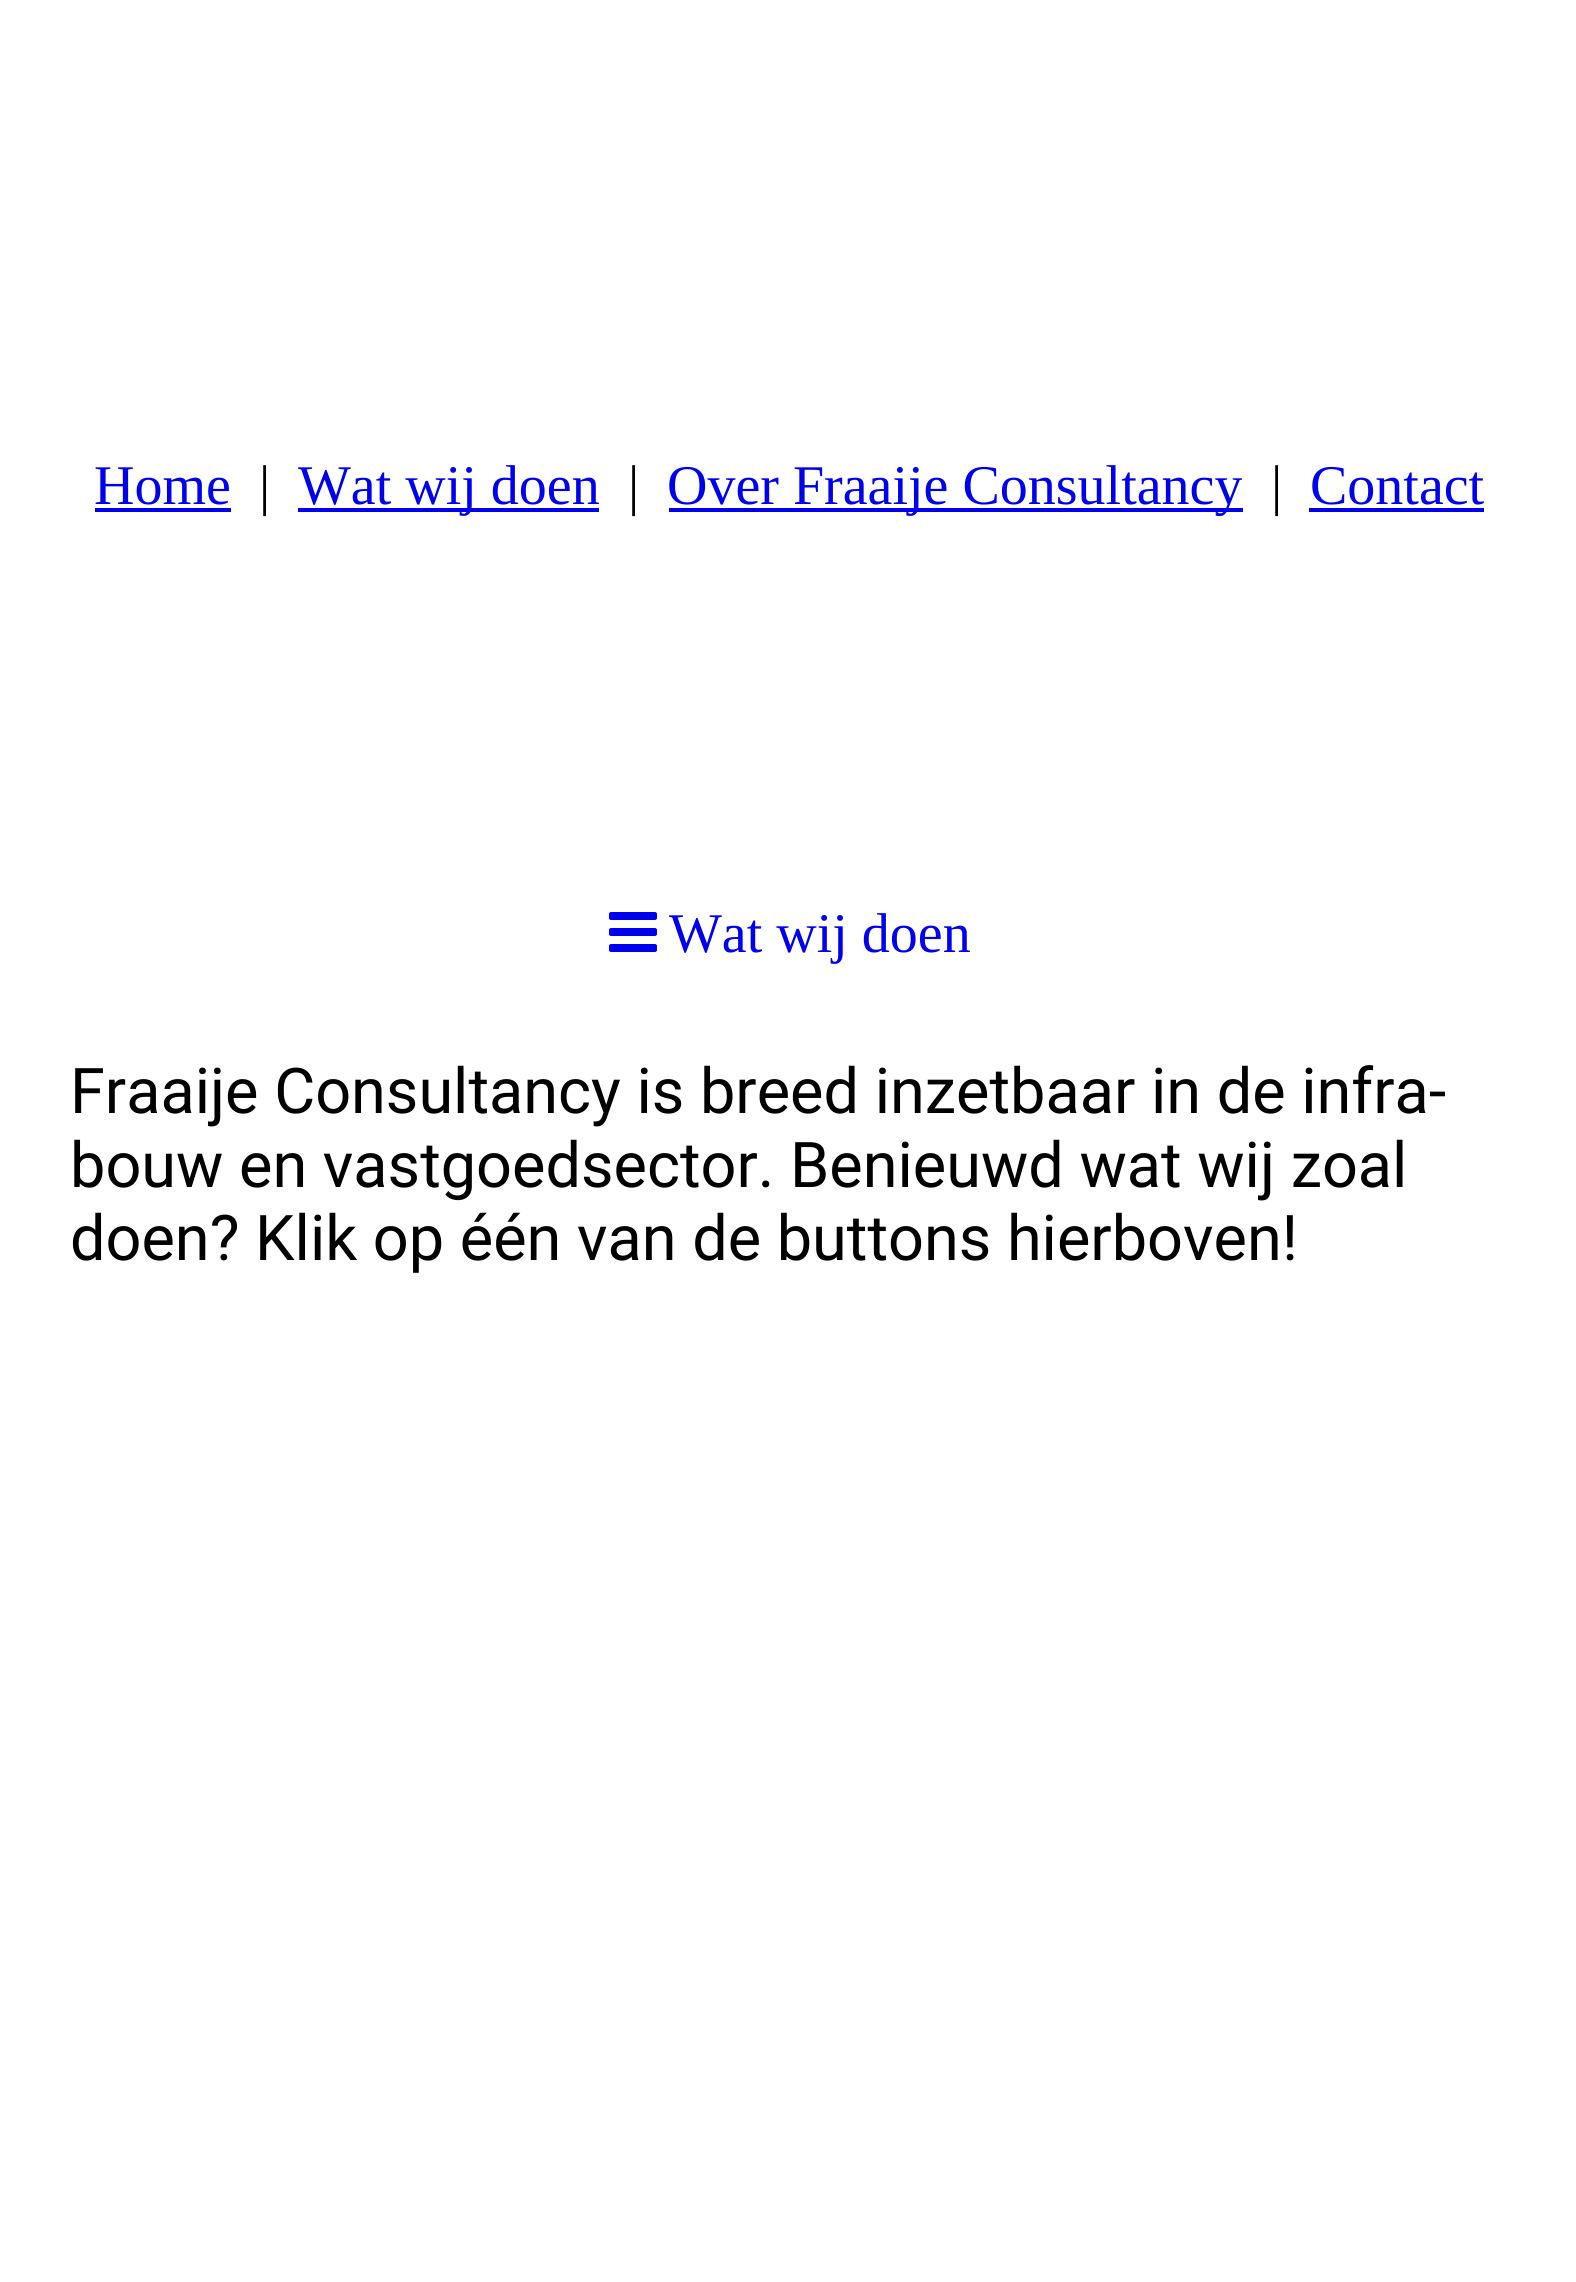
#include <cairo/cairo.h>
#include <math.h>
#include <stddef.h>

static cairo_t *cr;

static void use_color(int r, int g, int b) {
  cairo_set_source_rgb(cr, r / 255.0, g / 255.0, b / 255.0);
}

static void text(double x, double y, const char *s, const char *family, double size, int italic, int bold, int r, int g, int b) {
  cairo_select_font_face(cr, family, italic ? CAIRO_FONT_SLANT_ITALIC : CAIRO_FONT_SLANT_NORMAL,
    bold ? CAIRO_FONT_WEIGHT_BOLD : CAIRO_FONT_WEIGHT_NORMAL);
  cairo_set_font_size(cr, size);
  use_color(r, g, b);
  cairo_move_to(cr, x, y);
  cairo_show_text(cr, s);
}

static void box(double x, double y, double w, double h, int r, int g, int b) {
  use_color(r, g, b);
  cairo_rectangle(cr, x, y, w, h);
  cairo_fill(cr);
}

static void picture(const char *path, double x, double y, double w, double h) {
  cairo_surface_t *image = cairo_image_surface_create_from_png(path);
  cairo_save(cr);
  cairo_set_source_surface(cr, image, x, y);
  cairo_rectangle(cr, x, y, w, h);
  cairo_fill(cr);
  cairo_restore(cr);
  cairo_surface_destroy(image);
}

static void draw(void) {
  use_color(255, 255, 255);
  cairo_paint(cr);
  box(95, 508, 136, 4, 0, 0, 238);
  box(298, 508, 301, 4, 0, 0, 238);
  box(669, 508, 574, 4, 0, 0, 238);
  box(1309, 508, 175, 4, 0, 0, 238);
  picture("img_01.png", 609, 912, 48, 40);
  text(94, 504, "Home", "Liberation Serif", 56, 0, 0, 0, 0, 238);
  text(259, 504, "|", "Liberation Serif", 56, 0, 0, 0, 0, 0);
  text(298, 504, "Wat wij doen", "Liberation Serif", 56, 0, 0, 0, 0, 238);
  text(628, 504, "|", "Liberation Serif", 56, 0, 0, 0, 0, 0);
  text(667, 504, "Over Fraaije Consultancy", "Liberation Serif", 56, 0, 0, 0, 0, 238);
  text(1271, 504, "|", "Liberation Serif", 56, 0, 0, 0, 0, 0);
  text(1310, 504, "Contact", "Liberation Serif", 56, 0, 0, 0, 0, 238);
  text(669, 952, "Wat wij doen", "Liberation Serif", 56, 0, 0, 0, 0, 238);
  text(70, 1113, "Fraaije Consultancy is breed inzetbaar in de infra-", "Roboto", 63, 0, 0, 0, 0, 0);
  text(70, 1187, "bouw en vastgoedsector. Benieuwd wat wij zoal", "Roboto", 63, 0, 0, 0, 0, 0);
  text(70, 1260, "doen? Klik op één van de buttons hierboven!", "Roboto", 63, 0, 0, 0, 0, 0);
}

int main(void) {
  cairo_surface_t *surface = cairo_image_surface_create(CAIRO_FORMAT_RGB24, 1576, 2282);
  cr = cairo_create(surface);
  cairo_font_options_t *options = cairo_font_options_create();
  cairo_font_options_set_hint_metrics(options, CAIRO_HINT_METRICS_OFF);
  cairo_font_options_set_hint_style(options, CAIRO_HINT_STYLE_NONE);
  cairo_set_font_options(cr, options);
  cairo_set_miter_limit(cr, 4);
  draw();
  cairo_surface_write_to_png(surface, "out.png");
  cairo_font_options_destroy(options);
  cairo_destroy(cr);
  cairo_surface_destroy(surface);
  return 0;
}
